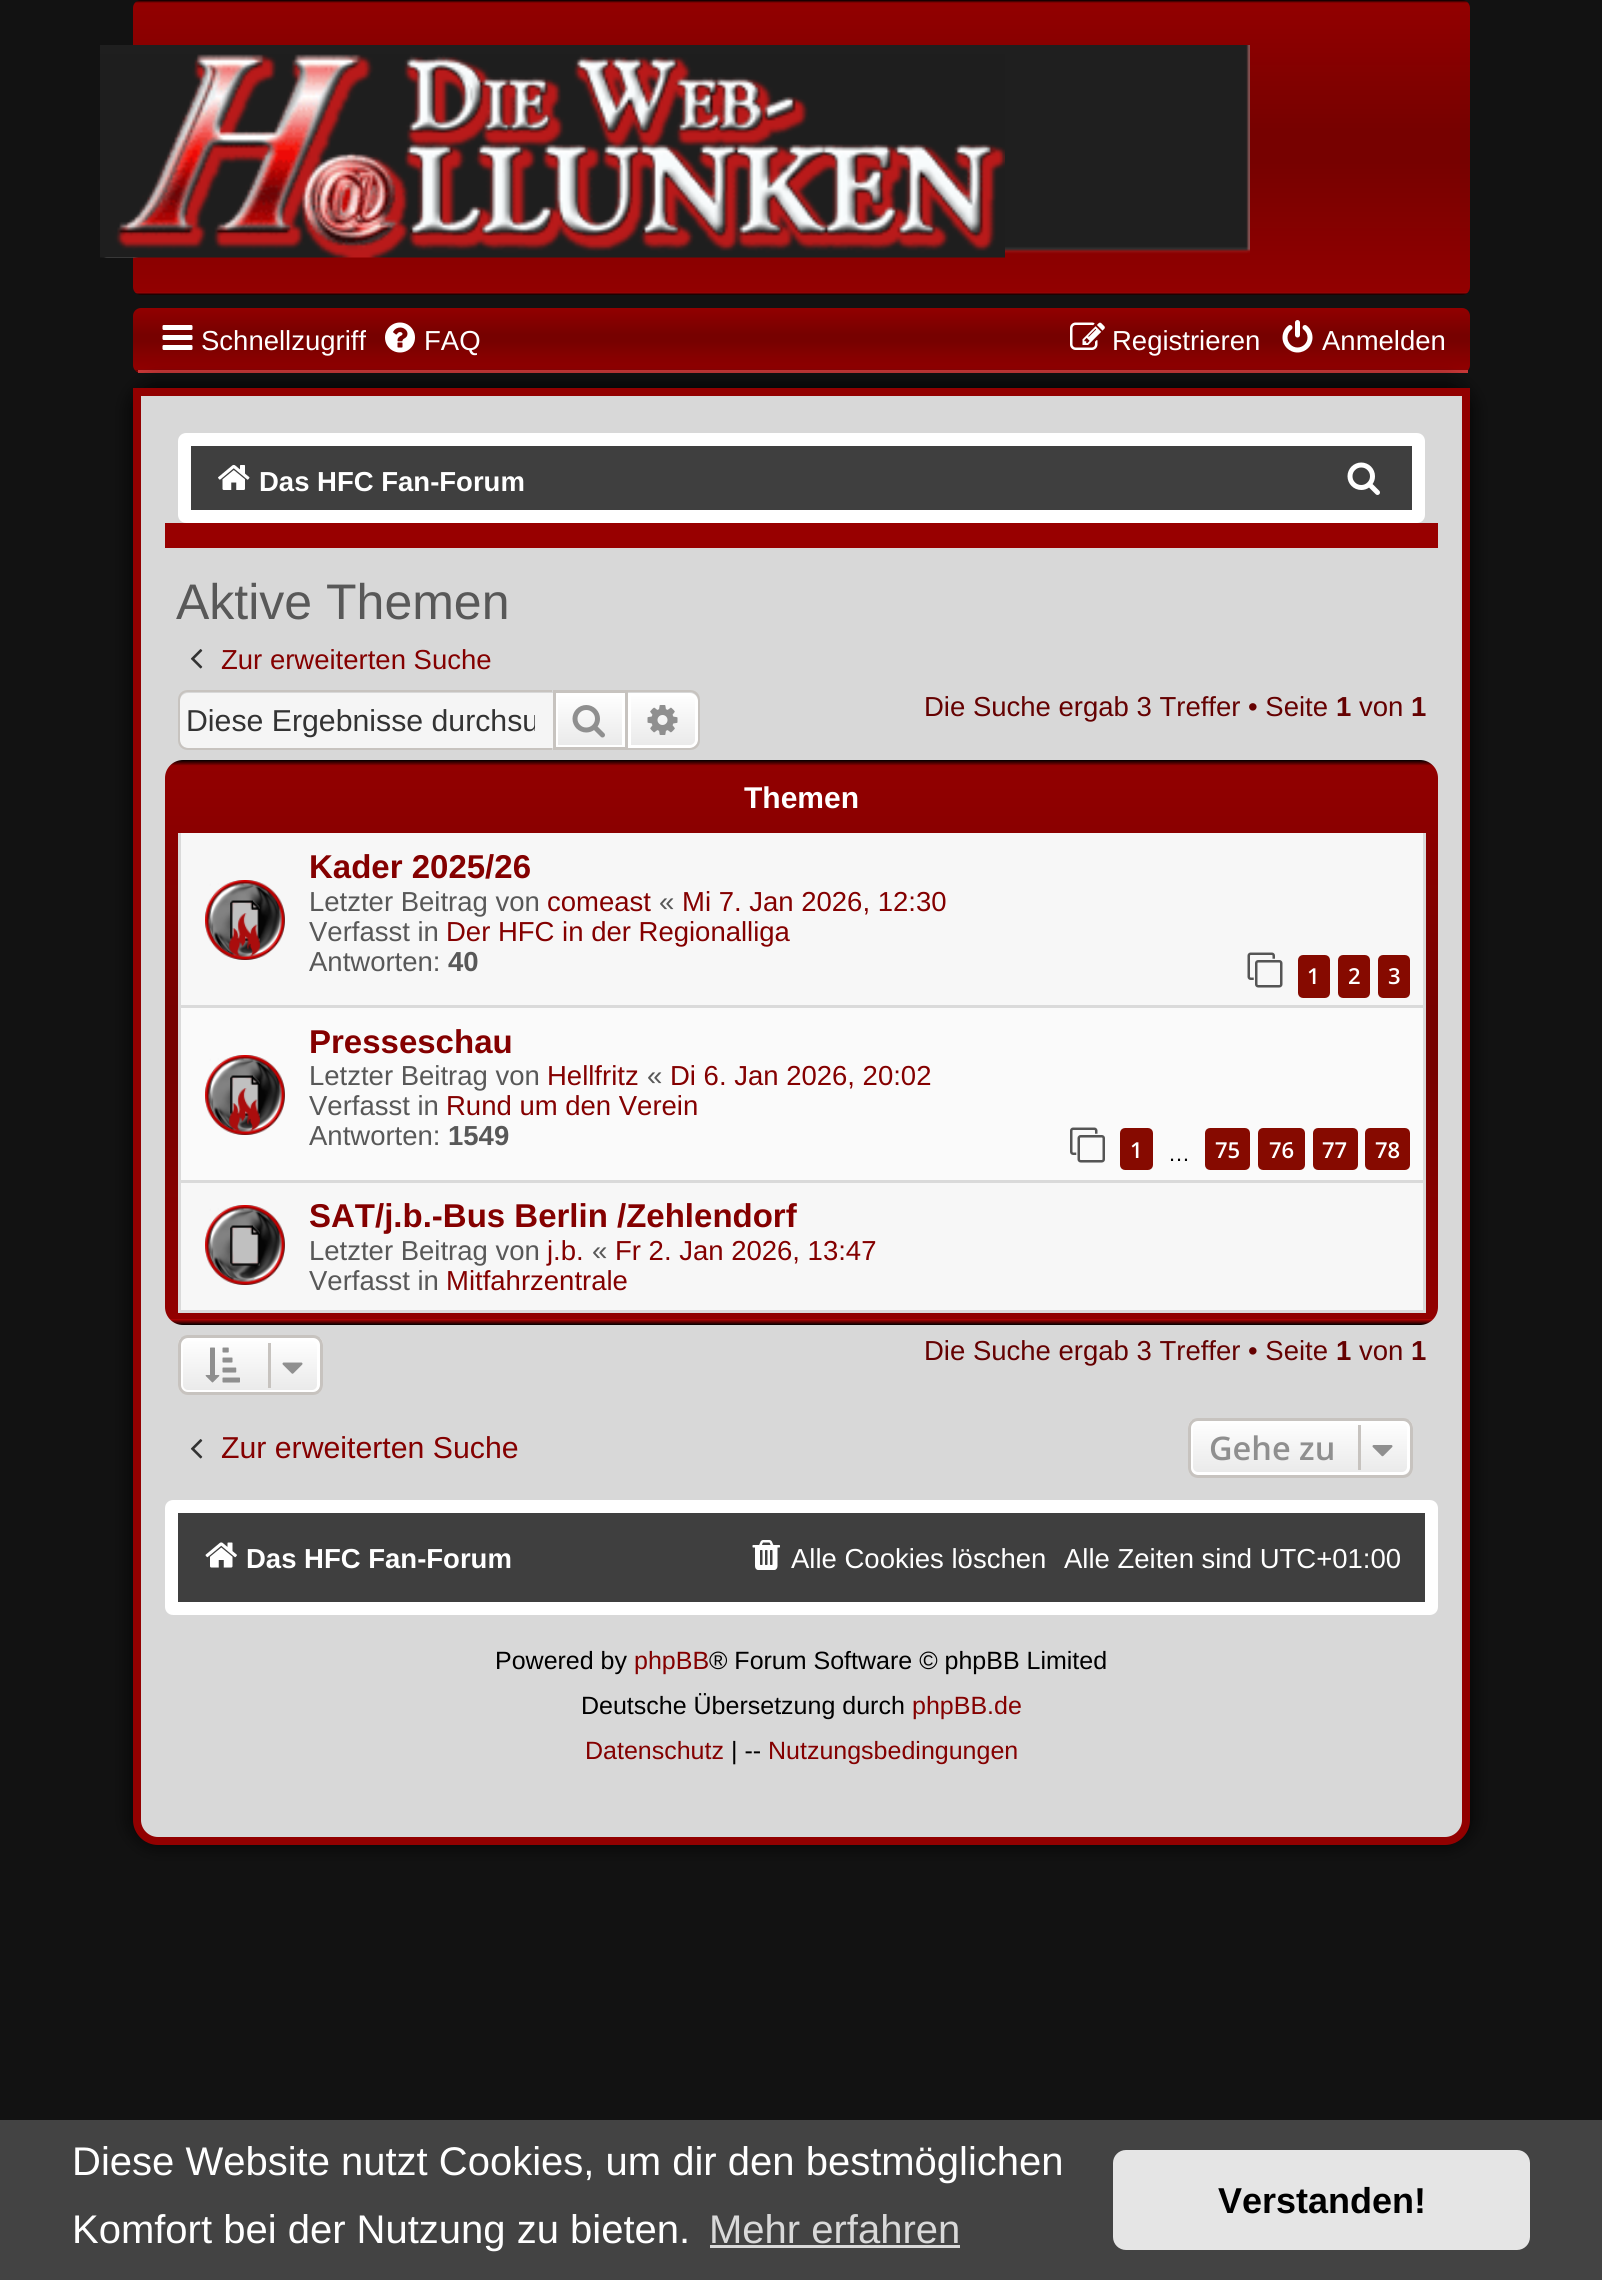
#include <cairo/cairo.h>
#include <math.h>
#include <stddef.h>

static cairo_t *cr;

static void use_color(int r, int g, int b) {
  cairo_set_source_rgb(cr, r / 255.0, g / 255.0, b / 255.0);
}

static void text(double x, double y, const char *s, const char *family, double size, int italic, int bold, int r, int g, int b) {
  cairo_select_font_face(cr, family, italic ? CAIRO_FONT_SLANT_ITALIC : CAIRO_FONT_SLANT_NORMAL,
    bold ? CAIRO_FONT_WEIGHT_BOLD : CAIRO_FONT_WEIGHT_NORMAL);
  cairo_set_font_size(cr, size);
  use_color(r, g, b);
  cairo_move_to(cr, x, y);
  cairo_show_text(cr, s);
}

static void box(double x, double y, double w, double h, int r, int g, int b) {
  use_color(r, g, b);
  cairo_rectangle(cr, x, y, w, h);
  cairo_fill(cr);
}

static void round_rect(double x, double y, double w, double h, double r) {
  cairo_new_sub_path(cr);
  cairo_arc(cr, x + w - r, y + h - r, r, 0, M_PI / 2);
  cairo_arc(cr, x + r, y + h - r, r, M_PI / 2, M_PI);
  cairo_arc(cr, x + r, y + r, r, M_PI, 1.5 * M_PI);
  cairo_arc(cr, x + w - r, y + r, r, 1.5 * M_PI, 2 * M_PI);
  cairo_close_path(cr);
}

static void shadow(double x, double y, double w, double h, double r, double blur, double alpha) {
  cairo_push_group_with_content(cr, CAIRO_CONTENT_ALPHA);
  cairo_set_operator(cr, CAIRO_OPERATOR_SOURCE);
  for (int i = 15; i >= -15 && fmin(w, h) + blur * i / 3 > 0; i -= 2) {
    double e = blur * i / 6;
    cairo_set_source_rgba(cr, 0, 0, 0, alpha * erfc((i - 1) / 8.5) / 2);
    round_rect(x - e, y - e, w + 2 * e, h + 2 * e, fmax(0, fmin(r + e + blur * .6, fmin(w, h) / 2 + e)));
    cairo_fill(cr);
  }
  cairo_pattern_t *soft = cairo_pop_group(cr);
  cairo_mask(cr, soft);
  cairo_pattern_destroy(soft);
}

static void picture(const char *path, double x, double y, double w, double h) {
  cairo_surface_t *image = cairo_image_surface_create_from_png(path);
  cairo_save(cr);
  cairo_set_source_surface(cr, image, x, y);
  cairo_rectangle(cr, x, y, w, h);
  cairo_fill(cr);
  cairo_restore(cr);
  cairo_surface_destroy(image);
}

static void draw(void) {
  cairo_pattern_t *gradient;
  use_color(18, 18, 18);
  cairo_paint(cr);
  gradient = cairo_pattern_create_linear(801, 0, 801, 295);
  cairo_pattern_add_color_stop_rgba(gradient, 0, 0, 0, 0, 1);
  cairo_pattern_add_color_stop_rgba(gradient, 0.01, 0.573, 0, 0, 1);
  cairo_pattern_add_color_stop_rgba(gradient, 0.44, 0.467, 0.004, 0, 1);
  cairo_pattern_add_color_stop_rgba(gradient, 0.55, 0.467, 0.004, 0, 1);
  cairo_pattern_add_color_stop_rgba(gradient, 0.99, 0.573, 0, 0, 1);
  cairo_pattern_add_color_stop_rgba(gradient, 0.99, 0.686, 0.016, 0.02, 1);
  cairo_pattern_add_color_stop_rgba(gradient, 1, 0, 0, 0, 1);
  cairo_set_source(cr, gradient);
  cairo_pattern_destroy(gradient);
  round_rect(133, 0, 1337, 295, 8);
  cairo_fill(cr);
  picture("img_01.png", 100, 45, 1150, 213);
  picture("img_02.png", 100, 54, 905, 204);
  cairo_save(cr);
  round_rect(133, 308, 1337, 65, 8);
  cairo_clip(cr);
  gradient = cairo_pattern_create_linear(801, 307, 801, 370);
  cairo_pattern_add_color_stop_rgba(gradient, 0, 0, 0, 0, 1);
  cairo_pattern_add_color_stop_rgba(gradient, 0.01, 0.573, 0, 0, 1);
  cairo_pattern_add_color_stop_rgba(gradient, 0.44, 0.467, 0.004, 0, 1);
  cairo_pattern_add_color_stop_rgba(gradient, 0.55, 0.467, 0.004, 0, 1);
  cairo_pattern_add_color_stop_rgba(gradient, 0.99, 0.573, 0, 0, 1);
  cairo_pattern_add_color_stop_rgba(gradient, 0.99, 0.686, 0.016, 0.02, 1);
  cairo_pattern_add_color_stop_rgba(gradient, 1, 0, 0, 0, 1);
  cairo_set_source(cr, gradient);
  cairo_pattern_destroy(gradient);
  cairo_new_path(cr);
  cairo_move_to(cr, 141, 308);
  cairo_line_to(cr, 1462, 308);
  cairo_curve_to(cr, 1466.5, 308, 1470, 311.5, 1470, 316);
  cairo_line_to(cr, 1470, 370);
  cairo_line_to(cr, 133, 370);
  cairo_line_to(cr, 133, 316);
  cairo_curve_to(cr, 133, 311.5, 136.5, 308, 141, 308);
  cairo_close_path(cr);
  cairo_fill(cr);
  gradient = cairo_pattern_create_linear(801, 370, 801, 433);
  cairo_pattern_add_color_stop_rgba(gradient, 0, 0, 0, 0, 1);
  cairo_pattern_add_color_stop_rgba(gradient, 0.01, 0.573, 0, 0, 1);
  cairo_pattern_add_color_stop_rgba(gradient, 0.44, 0.467, 0.004, 0, 1);
  cairo_pattern_add_color_stop_rgba(gradient, 0.55, 0.467, 0.004, 0, 1);
  cairo_pattern_add_color_stop_rgba(gradient, 0.99, 0.573, 0, 0, 1);
  cairo_pattern_add_color_stop_rgba(gradient, 0.99, 0.686, 0.016, 0.02, 1);
  cairo_pattern_add_color_stop_rgba(gradient, 1, 0, 0, 0, 1);
  cairo_set_source(cr, gradient);
  cairo_pattern_destroy(gradient);
  cairo_rectangle(cr, 133, 370, 5, 3);
  cairo_fill(cr);
  cairo_restore(cr);
  box(138, 370, 1330, 3, 201, 56, 56);
  picture("img_03.png", 162, 325, 31, 25);
  picture("img_04.png", 385, 322, 30, 31);
  picture("img_05.png", 1070, 322, 35, 28);
  picture("img_06.png", 1282, 320, 31, 33);
  use_color(2, 2, 2);
  shadow(128, 380, 1347, 1468, 30, 7.5, 0.7);
  use_color(216, 216, 216);
  cairo_new_path(cr);
  cairo_move_to(cr, 137, 392);
  cairo_line_to(cr, 1466, 392);
  cairo_line_to(cr, 1466, 1820);
  cairo_curve_to(cr, 1466, 1831.5, 1456.5, 1841, 1445, 1841);
  cairo_line_to(cr, 158, 1841);
  cairo_curve_to(cr, 146.5, 1841, 137, 1831.5, 137, 1820);
  cairo_close_path(cr);
  cairo_fill_preserve(cr);
  use_color(146, 0, 0);
  cairo_set_line_width(cr, 8);
  cairo_stroke(cr);
  use_color(63, 63, 63);
  round_rect(184.5, 439.5, 1234, 77, 1.5);
  cairo_fill_preserve(cr);
  use_color(255, 255, 255);
  cairo_set_line_width(cr, 13);
  cairo_stroke(cr);
  picture("img_07.png", 218, 464, 32, 26);
  picture("img_08.png", 1347, 462, 33, 33);
  box(165, 523, 1273, 25, 152, 0, 0);
  picture("img_09.png", 190, 649, 13, 20);
  use_color(245, 245, 245);
  cairo_new_path(cr);
  cairo_move_to(cr, 188, 693);
  cairo_line_to(cr, 553, 693);
  cairo_line_to(cr, 553, 748);
  cairo_line_to(cr, 188, 748);
  cairo_curve_to(cr, 183.5, 748, 180, 744.5, 180, 740);
  cairo_line_to(cr, 180, 701);
  cairo_curve_to(cr, 180, 696.5, 183.5, 693, 188, 693);
  cairo_close_path(cr);
  cairo_fill(cr);
  use_color(199, 195, 191);
  cairo_set_fill_rule(cr, CAIRO_FILL_RULE_EVEN_ODD);
  cairo_new_path(cr);
  cairo_move_to(cr, 188, 690);
  cairo_line_to(cr, 552, 690);
  cairo_line_to(cr, 552, 750);
  cairo_line_to(cr, 188, 750);
  cairo_curve_to(cr, 182, 750, 178, 746, 178, 740);
  cairo_line_to(cr, 178, 700);
  cairo_curve_to(cr, 178, 694, 182, 690, 188, 690);
  cairo_close_path(cr);
  cairo_move_to(cr, 188, 692);
  cairo_line_to(cr, 552, 692);
  cairo_line_to(cr, 552, 748);
  cairo_line_to(cr, 188, 748);
  cairo_curve_to(cr, 183, 748, 180, 744, 180, 740);
  cairo_line_to(cr, 180, 700);
  cairo_curve_to(cr, 180, 696, 183, 692, 188, 692);
  cairo_close_path(cr);
  cairo_fill(cr);
  gradient = cairo_pattern_create_linear(590, 693, 590, 748);
  cairo_pattern_add_color_stop_rgba(gradient, 0, 1, 1, 1, 1);
  cairo_pattern_add_color_stop_rgba(gradient, 1, 0.914, 0.914, 0.914, 1);
  cairo_set_source(cr, gradient);
  cairo_pattern_destroy(gradient);
  cairo_rectangle(cr, 558, 696, 64, 49);
  cairo_fill(cr);
  cairo_rectangle(cr, 556.5, 694.5, 67, 52);
  use_color(255, 255, 255);
  cairo_set_line_width(cr, 3);
  cairo_stroke(cr);
  cairo_rectangle(cr, 554.5, 691.5, 72, 57);
  use_color(199, 195, 191);
  cairo_stroke(cr);
  picture("img_10.png", 572, 705, 33, 33);
  gradient = cairo_pattern_create_linear(663, 693, 663, 748);
  cairo_pattern_add_color_stop_rgba(gradient, 0, 1, 1, 1, 1);
  cairo_pattern_add_color_stop_rgba(gradient, 1, 0.914, 0.914, 0.914, 1);
  cairo_set_source(cr, gradient);
  cairo_pattern_destroy(gradient);
  cairo_new_path(cr);
  cairo_move_to(cr, 629.5, 694.5);
  cairo_line_to(cr, 690, 694.5);
  cairo_curve_to(cr, 693.5, 694.5, 696.5, 697.5, 696.5, 701);
  cairo_line_to(cr, 696.5, 740);
  cairo_curve_to(cr, 696.5, 743.5, 693.5, 746.5, 690, 746.5);
  cairo_line_to(cr, 629.5, 746.5);
  cairo_close_path(cr);
  cairo_fill_preserve(cr);
  use_color(255, 255, 255);
  cairo_stroke(cr);
  use_color(199, 195, 191);
  cairo_new_path(cr);
  cairo_move_to(cr, 628, 690);
  cairo_line_to(cr, 690, 690);
  cairo_curve_to(cr, 696, 690, 700, 694, 700, 700);
  cairo_line_to(cr, 700, 740);
  cairo_curve_to(cr, 700, 746, 696, 750, 690, 750);
  cairo_line_to(cr, 628, 750);
  cairo_close_path(cr);
  cairo_move_to(cr, 628, 692);
  cairo_line_to(cr, 690, 692);
  cairo_curve_to(cr, 694, 692, 698, 696, 698, 700);
  cairo_line_to(cr, 698, 740);
  cairo_curve_to(cr, 698, 744, 694, 748, 690, 748);
  cairo_line_to(cr, 628, 748);
  cairo_close_path(cr);
  cairo_fill(cr);
  picture("img_11.png", 647, 705, 31, 30);
  gradient = cairo_pattern_create_linear(801, 760, 801, 1325);
  cairo_pattern_add_color_stop_rgba(gradient, 0, 0, 0, 0, 1);
  cairo_pattern_add_color_stop_rgba(gradient, 0.01, 0.573, 0, 0, 1);
  cairo_pattern_add_color_stop_rgba(gradient, 0.44, 0.467, 0.004, 0, 1);
  cairo_pattern_add_color_stop_rgba(gradient, 0.55, 0.467, 0.004, 0, 1);
  cairo_pattern_add_color_stop_rgba(gradient, 0.99, 0.573, 0, 0, 1);
  cairo_pattern_add_color_stop_rgba(gradient, 0.99, 0.686, 0.016, 0.02, 1);
  cairo_pattern_add_color_stop_rgba(gradient, 1, 0, 0, 0, 1);
  cairo_set_source(cr, gradient);
  cairo_pattern_destroy(gradient);
  round_rect(165, 760, 1273, 565, 18);
  cairo_fill(cr);
  box(181, 833, 1242, 172, 247, 247, 247);
  box(1423, 833, 3, 480, 218, 218, 218);
  box(178, 1005, 1247, 3, 218, 218, 218);
  box(178, 833, 3, 175, 218, 218, 218);
  picture("img_12.png", 205, 880, 80, 80);
  picture("img_13.png", 1247, 952, 36, 36);
  use_color(134, 10, 0);
  round_rect(1299.5, 956.5, 29, 40, 3.5);
  cairo_fill_preserve(cr);
  cairo_stroke(cr);
  round_rect(1339.5, 956.5, 29, 40, 3.5);
  cairo_fill_preserve(cr);
  cairo_stroke(cr);
  round_rect(1379.5, 956.5, 29, 40, 3.5);
  cairo_fill_preserve(cr);
  cairo_stroke(cr);
  box(181, 1008, 1242, 172, 250, 250, 250);
  box(178, 1180, 1247, 3, 218, 218, 218);
  box(178, 1008, 3, 175, 218, 218, 218);
  picture("img_14.png", 205, 1055, 80, 80);
  picture("img_15.png", 1070, 1127, 35, 36);
  use_color(134, 10, 0);
  round_rect(1121.5, 1129.5, 30, 39, 3.5);
  cairo_fill_preserve(cr);
  cairo_stroke(cr);
  round_rect(1206.5, 1129.5, 42, 39, 3.5);
  cairo_fill_preserve(cr);
  cairo_stroke(cr);
  round_rect(1259.5, 1129.5, 44, 39, 3.5);
  cairo_fill_preserve(cr);
  cairo_stroke(cr);
  round_rect(1314.5, 1129.5, 42, 39, 3.5);
  cairo_fill_preserve(cr);
  cairo_stroke(cr);
  round_rect(1366.5, 1129.5, 42, 39, 3.5);
  cairo_fill_preserve(cr);
  cairo_stroke(cr);
  box(181, 1183, 1242, 127, 247, 247, 247);
  box(178, 1310, 1247, 3, 218, 218, 218);
  box(178, 1183, 3, 130, 218, 218, 218);
  picture("img_16.png", 205, 1205, 80, 80);
  cairo_save(cr);
  cairo_set_fill_rule(cr, CAIRO_FILL_RULE_WINDING);
  round_rect(178, 1335, 145, 60, 10);
  cairo_clip(cr);
  gradient = cairo_pattern_create_linear(250, 1338, 250, 1393);
  cairo_pattern_add_color_stop_rgba(gradient, 0, 1, 1, 1, 1);
  cairo_pattern_add_color_stop_rgba(gradient, 1, 0.914, 0.914, 0.914, 1);
  cairo_set_source(cr, gradient);
  cairo_pattern_destroy(gradient);
  cairo_rectangle(cr, 178, 1338, 145, 55);
  cairo_fill(cr);
  cairo_restore(cr);
  round_rect(181.5, 1339.5, 137, 52, 6.5);
  use_color(255, 255, 255);
  cairo_stroke(cr);
  round_rect(179.5, 1336.5, 142, 57, 8.5);
  use_color(199, 195, 191);
  cairo_stroke(cr);
  picture("img_17.png", 205, 1347, 35, 36);
  box(268, 1343, 3, 45, 199, 195, 191);
  picture("img_18.png", 282, 1362, 21, 12);
  picture("img_09.png", 190, 1439, 13, 20);
  cairo_save(cr);
  cairo_set_fill_rule(cr, CAIRO_FILL_RULE_WINDING);
  round_rect(1188, 1418, 225, 60, 10);
  cairo_clip(cr);
  gradient = cairo_pattern_create_linear(1300, 1420, 1300, 1475);
  cairo_pattern_add_color_stop_rgba(gradient, 0, 1, 1, 1, 1);
  cairo_pattern_add_color_stop_rgba(gradient, 1, 0.914, 0.914, 0.914, 1);
  cairo_set_source(cr, gradient);
  cairo_pattern_destroy(gradient);
  cairo_rectangle(cr, 1188, 1420, 225, 55);
  cairo_fill(cr);
  cairo_restore(cr);
  round_rect(1191.5, 1421.5, 217, 52, 6.5);
  use_color(255, 255, 255);
  cairo_stroke(cr);
  round_rect(1189.5, 1419.5, 222, 57, 8.5);
  use_color(199, 195, 191);
  cairo_stroke(cr);
  box(1358, 1425, 3, 45, 199, 195, 191);
  picture("img_19.png", 1372, 1445, 21, 12);
  use_color(63, 63, 63);
  round_rect(171.5, 1506.5, 1260, 102, 1.5);
  cairo_fill_preserve(cr);
  use_color(255, 255, 255);
  cairo_set_line_width(cr, 13);
  cairo_stroke(cr);
  picture("img_20.png", 205, 1542, 32, 26);
  picture("img_21.png", 752, 1540, 28, 30);
  box(0, 2120, 1602, 160, 67, 67, 67);
  box(710, 2245, 250, 3, 217, 217, 217);
  use_color(229, 229, 229);
  round_rect(1113, 2150, 417, 100, 13);
  cairo_fill(cr);
  text(201, 350, "Schnellzugriff", "Liberation Sans", 27.5, 0, 0, 255, 255, 255);
  text(424, 350, "FAQ", "Liberation Sans", 27.5, 0, 0, 255, 255, 255);
  text(1112, 350, "Registrieren", "Liberation Sans", 27.5, 0, 0, 255, 255, 255);
  text(1322, 350, "Anmelden", "Liberation Sans", 27.5, 0, 0, 255, 255, 255);
  text(259, 491, "Das HFC Fan-Forum", "Liberation Sans", 27.5, 0, 1, 255, 255, 255);
  text(176, 619, "Aktive Themen", "Liberation Sans", 50, 0, 0, 88, 88, 88);
  text(221, 669, "Zur erweiterten Suche", "Liberation Sans", 27.5, 0, 0, 132, 0, 0);
  cairo_save(cr);
  cairo_set_fill_rule(cr, CAIRO_FILL_RULE_WINDING);
  cairo_rectangle(cr, 188, 703, 347, 35);
  cairo_clip(cr);
  text(186, 731, "Diese Ergebnisse durchsu", "Liberation Sans", 30.25, 0, 0, 51, 51, 51);
  cairo_restore(cr);
  text(924, 716, "Die Suche ergab 3 Treffer • Seite", "Liberation Sans", 27.5, 0, 0, 101, 1, 1);
  text(1336, 716, "1", "Liberation Sans", 27.5, 0, 1, 101, 1, 1);
  text(1359, 716, "von", "Liberation Sans", 27.5, 0, 0, 101, 1, 1);
  text(1411, 716, "1", "Liberation Sans", 27.5, 0, 1, 101, 1, 1);
  text(744, 808, "Themen", "Liberation Sans", 30, 0, 1, 255, 255, 255);
  text(309, 878, "Kader 2025/26", "Liberation Sans", 33, 0, 1, 132, 0, 0);
  text(309, 911, "Letzter Beitrag von", "Liberation Sans", 27.5, 0, 0, 88, 88, 88);
  text(547, 911, "comeast", "Liberation Sans", 27.5, 0, 0, 132, 0, 0);
  text(659, 911, "«", "Liberation Sans", 27.5, 0, 0, 88, 88, 88);
  text(682, 911, "Mi 7. Jan 2026, 12:30", "Liberation Sans", 27.5, 0, 0, 132, 0, 0);
  text(309, 941, "Verfasst in", "Liberation Sans", 27.5, 0, 0, 88, 88, 88);
  text(446, 941, "Der HFC in der Regionalliga", "Liberation Sans", 27.5, 0, 0, 132, 0, 0);
  text(309, 971, "Antworten:", "Liberation Sans", 27.5, 0, 0, 88, 88, 88);
  text(448, 971, "40", "Liberation Sans", 27.5, 0, 1, 88, 88, 88);
  text(1307, 984, "1", "Open Sans SemiBold", 22, 0, 0, 255, 255, 255);
  text(1348, 984, "2", "Open Sans SemiBold", 22, 0, 0, 255, 255, 255);
  text(1388, 984, "3", "Open Sans SemiBold", 22, 0, 0, 255, 255, 255);
  text(309, 1053, "Presseschau", "Liberation Sans", 33, 0, 1, 132, 0, 0);
  text(309, 1085, "Letzter Beitrag von", "Liberation Sans", 27.5, 0, 0, 88, 88, 88);
  text(547, 1085, "Hellfritz", "Liberation Sans", 27.5, 0, 0, 132, 0, 0);
  text(647, 1085, "«", "Liberation Sans", 27.5, 0, 0, 88, 88, 88);
  text(670, 1085, "Di 6. Jan 2026, 20:02", "Liberation Sans", 27.5, 0, 0, 132, 0, 0);
  text(309, 1115, "Verfasst in", "Liberation Sans", 27.5, 0, 0, 88, 88, 88);
  text(446, 1115, "Rund um den Verein", "Liberation Sans", 27.5, 0, 0, 132, 0, 0);
  text(309, 1145, "Antworten:", "Liberation Sans", 27.5, 0, 0, 88, 88, 88);
  text(448, 1145, "1549", "Liberation Sans", 27.5, 0, 1, 88, 88, 88);
  text(1130, 1158, "1", "Open Sans SemiBold", 22, 0, 0, 255, 255, 255);
  text(1215, 1158, "75", "Open Sans SemiBold", 22, 0, 0, 255, 255, 255);
  text(1269, 1158, "76", "Open Sans SemiBold", 22, 0, 0, 255, 255, 255);
  text(1322, 1158, "77", "Open Sans SemiBold", 22, 0, 0, 255, 255, 255);
  text(1375, 1158, "78", "Open Sans SemiBold", 22, 0, 0, 255, 255, 255);
  text(1168, 1161, "…", "Liberation Sans", 22, 0, 0, 0, 0, 0);
  text(309, 1227, "SAT/j.b.-Bus Berlin /Zehlendorf", "Liberation Sans", 33, 0, 1, 132, 0, 0);
  text(309, 1260, "Letzter Beitrag von", "Liberation Sans", 27.5, 0, 0, 88, 88, 88);
  text(547, 1260, "j.b.", "Liberation Sans", 27.5, 0, 0, 132, 0, 0);
  text(592, 1260, "«", "Liberation Sans", 27.5, 0, 0, 88, 88, 88);
  text(615, 1260, "Fr 2. Jan 2026, 13:47", "Liberation Sans", 27.5, 0, 0, 132, 0, 0);
  text(309, 1290, "Verfasst in", "Liberation Sans", 27.5, 0, 0, 88, 88, 88);
  text(446, 1290, "Mitfahrzentrale", "Liberation Sans", 27.5, 0, 0, 132, 0, 0);
  text(924, 1360, "Die Suche ergab 3 Treffer • Seite", "Liberation Sans", 27.5, 0, 0, 101, 1, 1);
  text(1336, 1360, "1", "Liberation Sans", 27.5, 0, 1, 101, 1, 1);
  text(1359, 1360, "von", "Liberation Sans", 27.5, 0, 0, 101, 1, 1);
  text(1411, 1360, "1", "Liberation Sans", 27.5, 0, 1, 101, 1, 1);
  text(221, 1458, "Zur erweiterten Suche", "Liberation Sans", 30.25, 0, 0, 132, 0, 0);
  text(1209, 1460, "Gehe zu", "Open Sans SemiBold", 32.5, 0, 0, 143, 143, 143);
  text(246, 1568, "Das HFC Fan-Forum", "Liberation Sans", 27.5, 0, 1, 255, 255, 255);
  text(791, 1568, "Alle Cookies löschen", "Liberation Sans", 27.5, 0, 0, 255, 255, 255);
  text(1064, 1568, "Alle Zeiten sind UTC+01:00", "Liberation Sans", 27.5, 0, 0, 255, 255, 255);
  text(495, 1669, "Powered by", "Liberation Sans", 25, 0, 0, 0, 0, 0);
  text(634, 1669, "phpBB", "Liberation Sans", 25, 0, 0, 132, 0, 0);
  text(709, 1669, "® Forum Software © phpBB Limited", "Liberation Sans", 25, 0, 0, 0, 0, 0);
  text(581, 1714, "Deutsche Übersetzung durch", "Liberation Sans", 25, 0, 0, 0, 0, 0);
  text(912, 1714, "phpBB.de", "Liberation Sans", 25, 0, 0, 132, 0, 0);
  text(585, 1759, "Datenschutz", "Liberation Sans", 25, 0, 0, 132, 0, 0);
  text(731, 1759, "| --", "Liberation Sans", 25, 0, 0, 0, 0, 0);
  text(768, 1759, "Nutzungsbedingungen", "Liberation Sans", 25, 0, 0, 132, 0, 0);
  text(72, 2175, "Diese Website nutzt Cookies, um dir den bestmöglichen", "Liberation Sans", 40, 0, 0, 255, 255, 255);
  text(72, 2243, "Komfort bei der Nutzung zu bieten.", "Liberation Sans", 40, 0, 0, 255, 255, 255);
  text(709, 2243, "Mehr erfahren", "Liberation Sans", 40, 0, 0, 217, 217, 217);
  text(1218, 2213, "Verstanden!", "Liberation Sans", 36, 0, 1, 0, 0, 0);
}

int main(void) {
  cairo_surface_t *surface = cairo_image_surface_create(CAIRO_FORMAT_RGB24, 1602, 2280);
  cr = cairo_create(surface);
  cairo_font_options_t *options = cairo_font_options_create();
  cairo_font_options_set_hint_metrics(options, CAIRO_HINT_METRICS_OFF);
  cairo_font_options_set_hint_style(options, CAIRO_HINT_STYLE_NONE);
  cairo_set_font_options(cr, options);
  cairo_set_miter_limit(cr, 4);
  draw();
  cairo_surface_write_to_png(surface, "out.png");
  cairo_font_options_destroy(options);
  cairo_destroy(cr);
  cairo_surface_destroy(surface);
  return 0;
}
